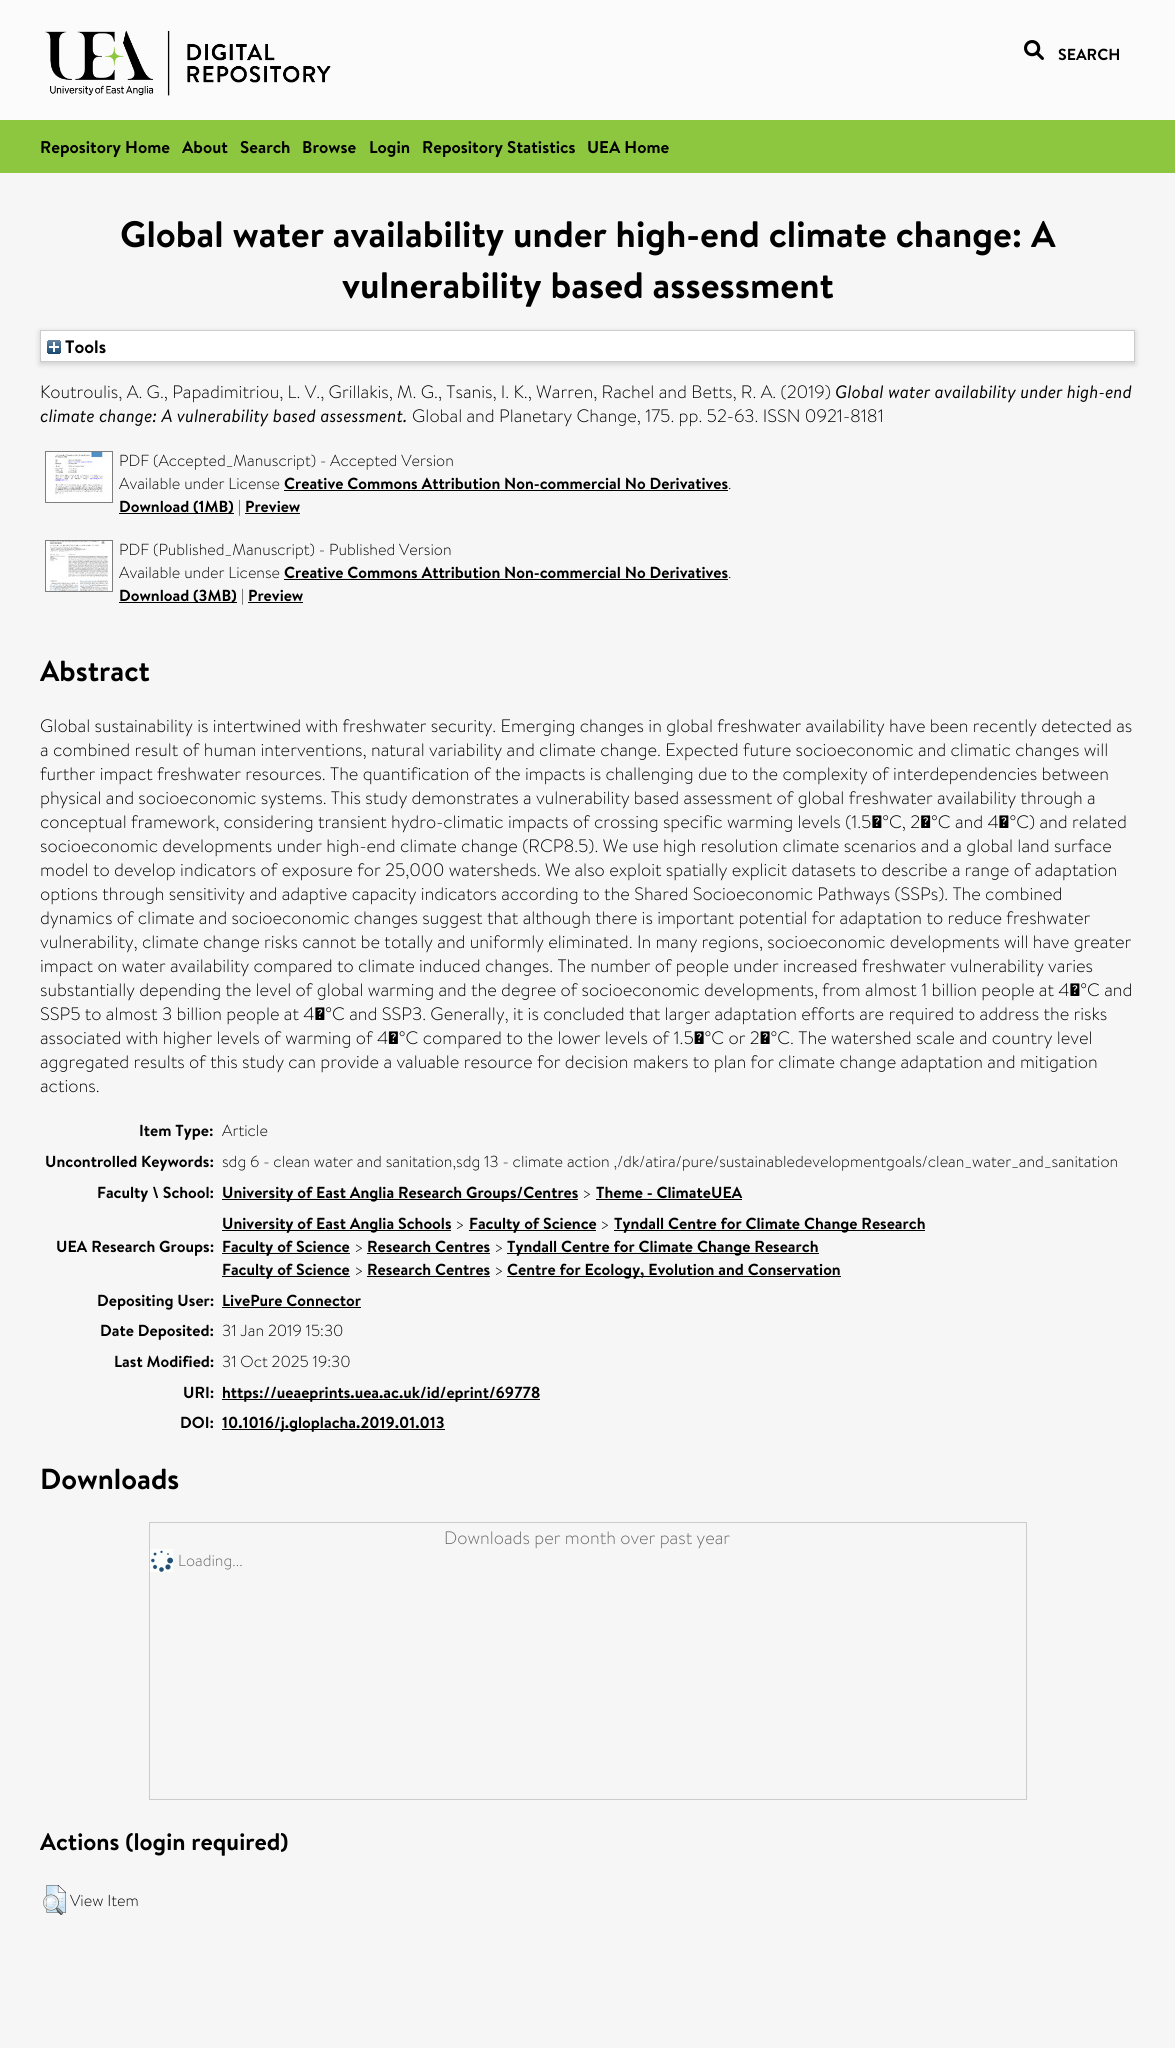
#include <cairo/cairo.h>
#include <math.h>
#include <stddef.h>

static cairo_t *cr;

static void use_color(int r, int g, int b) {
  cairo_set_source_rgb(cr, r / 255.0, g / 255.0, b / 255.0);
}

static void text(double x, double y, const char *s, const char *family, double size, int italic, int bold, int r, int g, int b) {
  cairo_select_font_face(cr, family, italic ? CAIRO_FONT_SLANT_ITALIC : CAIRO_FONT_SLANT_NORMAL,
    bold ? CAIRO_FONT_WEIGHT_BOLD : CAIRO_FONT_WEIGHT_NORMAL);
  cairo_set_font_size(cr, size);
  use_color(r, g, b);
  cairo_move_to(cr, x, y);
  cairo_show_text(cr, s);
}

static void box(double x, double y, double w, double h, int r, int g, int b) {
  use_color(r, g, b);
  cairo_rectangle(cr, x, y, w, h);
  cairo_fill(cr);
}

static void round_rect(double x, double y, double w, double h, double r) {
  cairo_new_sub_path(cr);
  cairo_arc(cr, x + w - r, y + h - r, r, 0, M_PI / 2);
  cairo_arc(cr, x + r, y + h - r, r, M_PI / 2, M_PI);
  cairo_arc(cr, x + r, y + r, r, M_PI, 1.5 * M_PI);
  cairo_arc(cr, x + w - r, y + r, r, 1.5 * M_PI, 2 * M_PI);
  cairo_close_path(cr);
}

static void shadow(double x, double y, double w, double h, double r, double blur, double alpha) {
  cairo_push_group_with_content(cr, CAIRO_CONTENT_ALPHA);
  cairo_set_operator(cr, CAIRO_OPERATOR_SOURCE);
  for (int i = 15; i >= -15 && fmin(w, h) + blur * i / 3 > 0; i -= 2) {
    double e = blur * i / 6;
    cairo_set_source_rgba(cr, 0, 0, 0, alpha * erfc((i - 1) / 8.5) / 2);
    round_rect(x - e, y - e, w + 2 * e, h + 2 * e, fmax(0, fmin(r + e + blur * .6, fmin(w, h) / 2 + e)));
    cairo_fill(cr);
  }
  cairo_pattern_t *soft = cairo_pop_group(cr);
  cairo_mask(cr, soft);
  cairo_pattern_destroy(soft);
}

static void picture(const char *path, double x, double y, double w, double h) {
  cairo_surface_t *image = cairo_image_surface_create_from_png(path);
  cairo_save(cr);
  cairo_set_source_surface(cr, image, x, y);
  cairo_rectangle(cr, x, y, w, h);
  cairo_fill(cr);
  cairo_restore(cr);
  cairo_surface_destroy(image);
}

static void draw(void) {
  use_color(246, 246, 246);
  cairo_paint(cr);
  box(0, 0, 1175, 120, 251, 251, 251);
  picture("img_01.png", 45, 30, 286, 66);
  picture("img_02.png", 1024, 40, 20, 20);
  box(0, 120, 1175, 53, 141, 198, 63);
  use_color(100, 100, 100);
  shadow(40, 332, 1095, 32, 0, 3, 0.3);
  use_color(255, 255, 255);
  cairo_rectangle(cr, 40.5, 330.5, 1094, 31);
  cairo_fill_preserve(cr);
  use_color(204, 204, 204);
  cairo_set_line_width(cr, 1);
  cairo_stroke(cr);
  picture("img_03.png", 47, 340, 14, 14);
  picture("img_04.png", 45, 451, 68, 52);
  box(284, 490, 444, 1, 0, 0, 0);
  box(119, 513, 115, 1, 0, 0, 0);
  box(245, 513, 55, 1, 0, 0, 0);
  picture("img_05.png", 45, 540, 68, 52);
  box(284, 579, 444, 1, 0, 0, 0);
  box(119, 602, 118, 1, 0, 0, 0);
  box(248, 602, 55, 1, 0, 0, 0);
  box(222, 1199, 356, 1, 0, 0, 0);
  box(596, 1199, 146, 1, 0, 0, 0);
  box(222, 1230, 229, 1, 0, 0, 0);
  box(469, 1230, 127, 1, 0, 0, 0);
  box(614, 1230, 311, 1, 0, 0, 0);
  box(222, 1253, 128, 1, 0, 0, 0);
  box(367, 1253, 123, 1, 0, 0, 0);
  box(507, 1253, 312, 1, 0, 0, 0);
  box(222, 1276, 128, 1, 0, 0, 0);
  box(367, 1276, 123, 1, 0, 0, 0);
  box(507, 1276, 334, 1, 0, 0, 0);
  box(222, 1307, 139, 1, 0, 0, 0);
  box(222, 1399, 318, 1, 0, 0, 0);
  box(222, 1429, 223, 1, 0, 0, 0);
  cairo_rectangle(cr, 149.5, 1522.5, 877, 277);
  use_color(204, 204, 204);
  cairo_stroke(cr);
  picture("img_06.png", 150, 1549, 23, 23);
  picture("img_07.png", 43, 1885, 23, 30);
  text(1058, 60, "SEARCH", "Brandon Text", 16, 0, 1, 0, 0, 0);
  text(40, 153, "Repository Home", "Brandon Text", 17, 0, 1, 0, 0, 0);
  text(182, 153, "About", "Brandon Text", 17, 0, 1, 0, 0, 0);
  text(240, 153, "Search", "Brandon Text", 17, 0, 1, 0, 0, 0);
  text(302, 153, "Browse", "Brandon Text", 17, 0, 1, 0, 0, 0);
  text(369, 153, "Login", "Brandon Text", 17, 0, 1, 0, 0, 0);
  text(422, 153, "Repository Statistics", "Brandon Text", 17, 0, 1, 0, 0, 0);
  text(587, 153, "UEA Home", "Brandon Text", 17, 0, 1, 0, 0, 0);
  text(120, 247, "Global water availability under high-end climate change: A", "Brandon Text", 36.8, 0, 1, 0, 0, 0);
  text(342, 298, "vulnerability based assessment", "Brandon Text", 36.8, 0, 1, 0, 0, 0);
  text(65, 353, "Tools", "Brandon Text", 18, 0, 1, 0, 0, 0);
  text(40, 398, "Koutroulis, A. G., Papadimitriou, L. V., Grillakis, M. G., Tsanis, I. K., Warren, Rachel and Betts, R. A. (2019)", "Brandon Text Light", 18, 0, 0, 0, 0, 0);
  text(835, 398, "Global water availability under high-end", "Brandon Text", 18, 1, 0, 0, 0, 0);
  text(40, 422, "climate change: A vulnerability based assessment.", "Brandon Text", 18, 1, 0, 0, 0, 0);
  text(412, 422, "Global and Planetary Change, 175. pp. 52-63. ISSN 0921-8181", "Brandon Text Light", 18, 0, 0, 0, 0, 0);
  text(119, 466, "PDF (Accepted_Manuscript) - Accepted Version", "Brandon Text Light", 16, 0, 0, 0, 0, 0);
  text(119, 489, "Available under License", "Brandon Text Light", 16, 0, 0, 0, 0, 0);
  text(284, 489, "Creative Commons Attribution Non-commercial No Derivatives", "Brandon Text", 16, 0, 1, 0, 0, 0);
  text(728, 489, ".", "Brandon Text Light", 16, 0, 0, 0, 0, 0);
  text(119, 512, "Download (1MB)", "Brandon Text", 16, 0, 1, 0, 0, 0);
  text(238, 512, "|", "Brandon Text Light", 16, 0, 0, 0, 0, 0);
  text(245, 512, "Preview", "Brandon Text", 16, 0, 1, 0, 0, 0);
  text(119, 555, "PDF (Published_Manuscript) - Published Version", "Brandon Text Light", 16, 0, 0, 0, 0, 0);
  text(119, 578, "Available under License", "Brandon Text Light", 16, 0, 0, 0, 0, 0);
  text(284, 578, "Creative Commons Attribution Non-commercial No Derivatives", "Brandon Text", 16, 0, 1, 0, 0, 0);
  text(728, 578, ".", "Brandon Text Light", 16, 0, 0, 0, 0, 0);
  text(119, 601, "Download (3MB)", "Brandon Text", 16, 0, 1, 0, 0, 0);
  text(241, 601, "|", "Brandon Text Light", 16, 0, 0, 0, 0, 0);
  text(248, 601, "Preview", "Brandon Text", 16, 0, 1, 0, 0, 0);
  text(40, 681, "Abstract", "Brandon Text", 29, 0, 1, 0, 0, 0);
  text(40, 732, "Global sustainability is intertwined with freshwater security. Emerging changes in global freshwater availability have been recently detected as", "Brandon Text Light", 18, 0, 0, 0, 0, 0);
  text(40, 756, "a combined result of human interventions, natural variability and climate change. Expected future socioeconomic and climatic changes will", "Brandon Text Light", 18, 0, 0, 0, 0, 0);
  text(40, 780, "further impact freshwater resources. The quantification of the impacts is challenging due to the complexity of interdependencies between", "Brandon Text Light", 18, 0, 0, 0, 0, 0);
  text(40, 804, "physical and socioeconomic systems. This study demonstrates a vulnerability based assessment of global freshwater availability through a", "Brandon Text Light", 18, 0, 0, 0, 0, 0);
  text(40, 828, "conceptual framework, considering transient hydro-climatic impacts of crossing specific warming levels (1.5 °C, 2 °C and 4 °C) and related", "Brandon Text Light", 18, 0, 0, 0, 0, 0);
  text(40, 852, "socioeconomic developments under high-end climate change (RCP8.5). We use high resolution climate scenarios and a global land surface", "Brandon Text Light", 18, 0, 0, 0, 0, 0);
  text(40, 876, "model to develop indicators of exposure for 25,000 watersheds. We also exploit spatially explicit datasets to describe a range of adaptation", "Brandon Text Light", 18, 0, 0, 0, 0, 0);
  text(40, 900, "options through sensitivity and adaptive capacity indicators according to the Shared Socioeconomic Pathways (SSPs). The combined", "Brandon Text Light", 18, 0, 0, 0, 0, 0);
  text(40, 924, "dynamics of climate and socioeconomic changes suggest that although there is important potential for adaptation to reduce freshwater", "Brandon Text Light", 18, 0, 0, 0, 0, 0);
  text(40, 948, "vulnerability, climate change risks cannot be totally and uniformly eliminated. In many regions, socioeconomic developments will have greater", "Brandon Text Light", 18, 0, 0, 0, 0, 0);
  text(40, 972, "impact on water availability compared to climate induced changes. The number of people under increased freshwater vulnerability varies", "Brandon Text Light", 18, 0, 0, 0, 0, 0);
  text(40, 996, "substantially depending the level of global warming and the degree of socioeconomic developments, from almost 1 billion people at 4 °C and", "Brandon Text Light", 18, 0, 0, 0, 0, 0);
  text(40, 1020, "SSP5 to almost 3 billion people at 4 °C and SSP3. Generally, it is concluded that larger adaptation efforts are required to address the risks", "Brandon Text Light", 18, 0, 0, 0, 0, 0);
  text(40, 1044, "associated with higher levels of warming of 4 °C compared to the lower levels of 1.5 °C or 2 °C. The watershed scale and country level", "Brandon Text Light", 18, 0, 0, 0, 0, 0);
  text(40, 1068, "aggregated results of this study can provide a valuable resource for decision makers to plan for climate change adaptation and mitigation", "Brandon Text Light", 18, 0, 0, 0, 0, 0);
  text(40, 1092, "actions.", "Brandon Text Light", 18, 0, 0, 0, 0, 0);
  text(139, 1136, "Item Type:", "Brandon Text", 16, 0, 1, 0, 0, 0);
  text(222, 1136, "Article", "Brandon Text Light", 16, 0, 0, 0, 0, 0);
  text(45, 1167, "Uncontrolled Keywords:", "Brandon Text", 16, 0, 1, 0, 0, 0);
  text(222, 1167, "sdg 6 - clean water and sanitation,sdg 13 - climate action ,/dk/atira/pure/sustainabledevelopmentgoals/clean_water_and_sanitation", "Brandon Text Light", 16, 0, 0, 0, 0, 0);
  text(97, 1198, "Faculty \\ School:", "Brandon Text", 16, 0, 1, 0, 0, 0);
  text(222, 1198, "University of East Anglia Research Groups/Centres", "Brandon Text", 16, 0, 1, 0, 0, 0);
  text(582, 1198, ">", "Brandon Text Light", 16, 0, 0, 0, 0, 0);
  text(596, 1198, "Theme - ClimateUEA", "Brandon Text", 16, 0, 1, 0, 0, 0);
  text(56, 1252, "UEA Research Groups:", "Brandon Text", 16, 0, 1, 0, 0, 0);
  text(222, 1229, "University of East Anglia Schools", "Brandon Text", 16, 0, 1, 0, 0, 0);
  text(455, 1229, ">", "Brandon Text Light", 16, 0, 0, 0, 0, 0);
  text(469, 1229, "Faculty of Science", "Brandon Text", 16, 0, 1, 0, 0, 0);
  text(600, 1229, ">", "Brandon Text Light", 16, 0, 0, 0, 0, 0);
  text(614, 1229, "Tyndall Centre for Climate Change Research", "Brandon Text", 16, 0, 1, 0, 0, 0);
  text(222, 1252, "Faculty of Science", "Brandon Text", 16, 0, 1, 0, 0, 0);
  text(354, 1252, ">", "Brandon Text Light", 16, 0, 0, 0, 0, 0);
  text(367, 1252, "Research Centres", "Brandon Text", 16, 0, 1, 0, 0, 0);
  text(494, 1252, ">", "Brandon Text Light", 16, 0, 0, 0, 0, 0);
  text(507, 1252, "Tyndall Centre for Climate Change Research", "Brandon Text", 16, 0, 1, 0, 0, 0);
  text(222, 1275, "Faculty of Science", "Brandon Text", 16, 0, 1, 0, 0, 0);
  text(354, 1275, ">", "Brandon Text Light", 16, 0, 0, 0, 0, 0);
  text(367, 1275, "Research Centres", "Brandon Text", 16, 0, 1, 0, 0, 0);
  text(494, 1275, ">", "Brandon Text Light", 16, 0, 0, 0, 0, 0);
  text(507, 1275, "Centre for Ecology, Evolution and Conservation", "Brandon Text", 16, 0, 1, 0, 0, 0);
  text(97, 1306, "Depositing User:", "Brandon Text", 16, 0, 1, 0, 0, 0);
  text(222, 1306, "LivePure Connector", "Brandon Text", 16, 0, 1, 0, 0, 0);
  text(100, 1336, "Date Deposited:", "Brandon Text", 16, 0, 1, 0, 0, 0);
  text(222, 1336, "31 Jan 2019 15:30", "Brandon Text Light", 16, 0, 0, 0, 0, 0);
  text(114, 1367, "Last Modified:", "Brandon Text", 16, 0, 1, 0, 0, 0);
  text(222, 1367, "31 Oct 2025 19:30", "Brandon Text Light", 16, 0, 0, 0, 0, 0);
  text(183, 1398, "URI:", "Brandon Text", 16, 0, 1, 0, 0, 0);
  text(222, 1398, "https://ueaeprints.uea.ac.uk/id/eprint/69778", "Brandon Text", 16, 0, 1, 0, 0, 0);
  text(180, 1428, "DOI:", "Brandon Text", 16, 0, 1, 0, 0, 0);
  text(222, 1428, "10.1016/j.gloplacha.2019.01.013", "Brandon Text", 16, 0, 1, 0, 0, 0);
  text(40, 1489, "Downloads", "Brandon Text", 29, 0, 1, 0, 0, 0);
  text(444, 1544, "Downloads per month over past year", "Brandon Text Light", 18, 0, 0, 102, 102, 102);
  text(178, 1566, "Loading...", "Brandon Text Light", 16, 0, 0, 102, 102, 102);
  text(40, 1850, "Actions (login required)", "Brandon Text", 24, 0, 1, 0, 0, 0);
  text(70, 1906, "View Item", "Brandon Text Light", 16, 0, 0, 0, 0, 0);
}

int main(void) {
  cairo_surface_t *surface = cairo_image_surface_create(CAIRO_FORMAT_RGB24, 1175, 2048);
  cr = cairo_create(surface);
  cairo_font_options_t *options = cairo_font_options_create();
  cairo_font_options_set_hint_metrics(options, CAIRO_HINT_METRICS_OFF);
  cairo_font_options_set_hint_style(options, CAIRO_HINT_STYLE_NONE);
  cairo_set_font_options(cr, options);
  cairo_set_miter_limit(cr, 4);
  draw();
  cairo_surface_write_to_png(surface, "out.png");
  cairo_font_options_destroy(options);
  cairo_destroy(cr);
  cairo_surface_destroy(surface);
  return 0;
}
